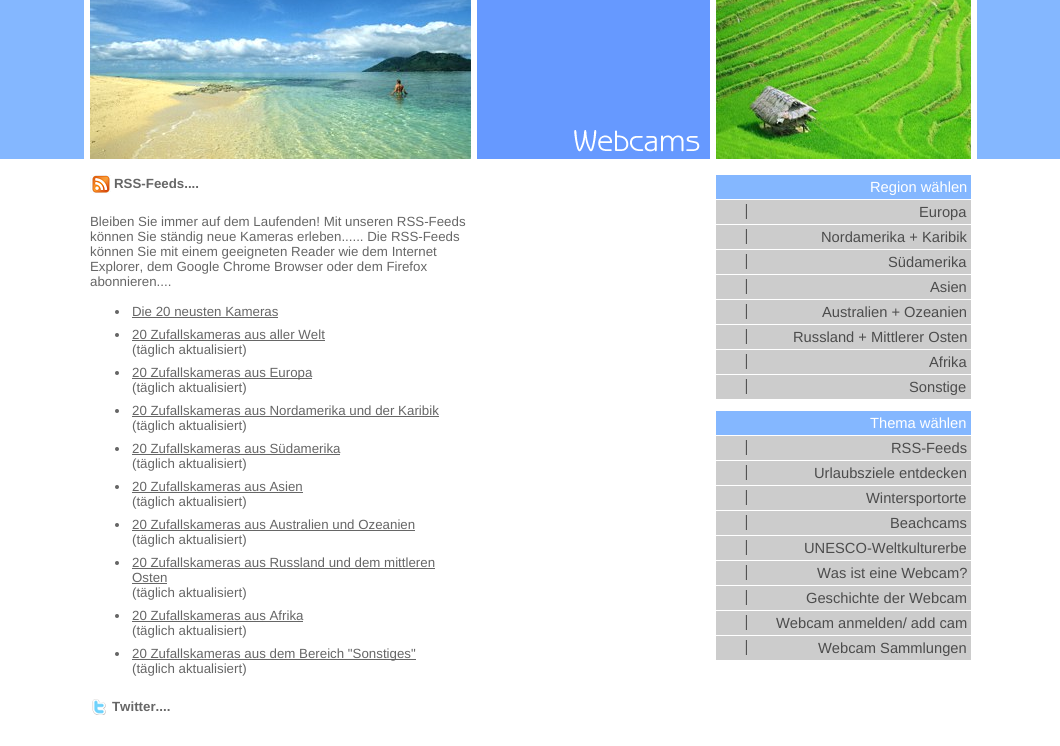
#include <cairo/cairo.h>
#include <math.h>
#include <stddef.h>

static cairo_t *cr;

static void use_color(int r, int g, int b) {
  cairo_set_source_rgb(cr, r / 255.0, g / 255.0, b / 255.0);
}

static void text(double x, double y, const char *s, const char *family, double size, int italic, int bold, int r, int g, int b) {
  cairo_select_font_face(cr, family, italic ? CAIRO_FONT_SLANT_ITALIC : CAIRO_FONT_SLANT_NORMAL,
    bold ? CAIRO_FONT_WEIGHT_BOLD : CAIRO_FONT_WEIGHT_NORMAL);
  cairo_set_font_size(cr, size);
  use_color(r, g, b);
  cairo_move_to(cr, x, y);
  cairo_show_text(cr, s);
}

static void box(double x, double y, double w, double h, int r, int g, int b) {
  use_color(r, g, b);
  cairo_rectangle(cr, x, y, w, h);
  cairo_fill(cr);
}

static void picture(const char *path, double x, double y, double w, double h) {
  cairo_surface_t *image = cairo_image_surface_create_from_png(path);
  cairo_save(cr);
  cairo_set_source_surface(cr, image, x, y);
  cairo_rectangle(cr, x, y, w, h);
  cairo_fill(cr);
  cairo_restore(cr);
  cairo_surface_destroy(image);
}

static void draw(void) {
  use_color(255, 255, 255);
  cairo_paint(cr);
  box(0, 0, 1060, 159, 132, 183, 255);
  box(84, 0, 6, 159, 255, 255, 255);
  picture("img_01.png", 90, 0, 381, 159);
  box(471, 0, 6, 159, 255, 255, 255);
  picture("img_02.png", 477, 0, 233, 159);
  box(710, 0, 6, 159, 255, 255, 255);
  picture("img_03.png", 716, 0, 255, 159);
  box(971, 0, 6, 159, 255, 255, 255);
  picture("img_04.png", 90, 175, 21, 19);
  use_color(102, 102, 102);
  cairo_arc(cr, 117, 312, 2, 0, 2 * M_PI);
  cairo_fill(cr);
  box(132, 317, 146, 1, 102, 102, 102);
  cairo_arc(cr, 117, 335, 2, 0, 2 * M_PI);
  cairo_fill(cr);
  box(132, 340, 193, 1, 102, 102, 102);
  cairo_arc(cr, 117, 373, 2, 0, 2 * M_PI);
  cairo_fill(cr);
  box(132, 378, 180, 1, 102, 102, 102);
  cairo_arc(cr, 117, 411, 2, 0, 2 * M_PI);
  cairo_fill(cr);
  box(132, 416, 307, 1, 102, 102, 102);
  cairo_arc(cr, 117, 449, 2, 0, 2 * M_PI);
  cairo_fill(cr);
  box(132, 454, 208, 1, 102, 102, 102);
  cairo_arc(cr, 117, 487, 2, 0, 2 * M_PI);
  cairo_fill(cr);
  box(132, 492, 171, 1, 102, 102, 102);
  cairo_arc(cr, 117, 525, 2, 0, 2 * M_PI);
  cairo_fill(cr);
  box(132, 530, 283, 1, 102, 102, 102);
  cairo_arc(cr, 117, 563, 2, 0, 2 * M_PI);
  cairo_fill(cr);
  box(132, 568, 303, 1, 102, 102, 102);
  box(132, 583, 35, 1, 102, 102, 102);
  cairo_arc(cr, 117, 616, 2, 0, 2 * M_PI);
  cairo_fill(cr);
  box(132, 621, 171, 1, 102, 102, 102);
  cairo_arc(cr, 117, 654, 2, 0, 2 * M_PI);
  cairo_fill(cr);
  box(132, 659, 284, 1, 102, 102, 102);
  picture("img_05.png", 92, 699, 14, 16);
  box(716, 175, 255, 24, 132, 183, 255);
  box(716, 200, 255, 24, 204, 204, 204);
  picture("img_06.png", 745, 204, 2, 15);
  box(716, 225, 255, 24, 204, 204, 204);
  picture("img_06.png", 745, 229, 2, 15);
  box(716, 250, 255, 24, 204, 204, 204);
  picture("img_06.png", 745, 254, 2, 15);
  box(716, 275, 255, 24, 204, 204, 204);
  picture("img_06.png", 745, 279, 2, 15);
  box(716, 300, 255, 24, 204, 204, 204);
  picture("img_06.png", 745, 304, 2, 15);
  box(716, 325, 255, 24, 204, 204, 204);
  picture("img_06.png", 745, 329, 2, 15);
  box(716, 350, 255, 24, 204, 204, 204);
  picture("img_06.png", 745, 354, 2, 15);
  box(716, 375, 255, 24, 204, 204, 204);
  picture("img_06.png", 745, 379, 2, 15);
  box(716, 411, 255, 24, 132, 183, 255);
  box(716, 436, 255, 24, 204, 204, 204);
  picture("img_06.png", 745, 440, 2, 15);
  box(716, 461, 255, 24, 204, 204, 204);
  picture("img_06.png", 745, 465, 2, 15);
  box(716, 486, 255, 24, 204, 204, 204);
  picture("img_06.png", 745, 490, 2, 15);
  box(716, 511, 255, 24, 204, 204, 204);
  picture("img_06.png", 745, 515, 2, 15);
  box(716, 536, 255, 24, 204, 204, 204);
  picture("img_06.png", 745, 540, 2, 15);
  box(716, 561, 255, 24, 204, 204, 204);
  picture("img_06.png", 745, 565, 2, 15);
  box(716, 586, 255, 24, 204, 204, 204);
  picture("img_06.png", 745, 590, 2, 15);
  box(716, 611, 255, 24, 204, 204, 204);
  picture("img_06.png", 745, 615, 2, 15);
  box(716, 636, 255, 24, 204, 204, 204);
  picture("img_06.png", 745, 640, 2, 15);
  text(114, 188, "RSS-Feeds....", "Liberation Sans", 13.3, 0, 1, 102, 102, 102);
  text(90, 226, "Bleiben Sie immer auf dem Laufenden! Mit unseren RSS-Feeds", "Liberation Sans", 13.3, 0, 0, 102, 102, 102);
  text(90, 241, "können Sie ständig neue Kameras erleben...... Die RSS-Feeds", "Liberation Sans", 13.3, 0, 0, 102, 102, 102);
  text(90, 256, "können Sie mit einem geeigneten Reader wie dem Internet", "Liberation Sans", 13.3, 0, 0, 102, 102, 102);
  text(90, 271, "Explorer, dem Google Chrome Browser oder dem Firefox", "Liberation Sans", 13.3, 0, 0, 102, 102, 102);
  text(90, 286, "abonnieren....", "Liberation Sans", 13.3, 0, 0, 102, 102, 102);
  text(132, 316, "Die 20 neusten Kameras", "Liberation Sans", 13.3, 0, 0, 102, 102, 102);
  text(132, 339, "20 Zufallskameras aus aller Welt", "Liberation Sans", 13.3, 0, 0, 102, 102, 102);
  text(132, 354, "(täglich aktualisiert)", "Liberation Sans", 13.3, 0, 0, 102, 102, 102);
  text(132, 377, "20 Zufallskameras aus Europa", "Liberation Sans", 13.3, 0, 0, 102, 102, 102);
  text(132, 392, "(täglich aktualisiert)", "Liberation Sans", 13.3, 0, 0, 102, 102, 102);
  text(132, 415, "20 Zufallskameras aus Nordamerika und der Karibik", "Liberation Sans", 13.3, 0, 0, 102, 102, 102);
  text(132, 430, "(täglich aktualisiert)", "Liberation Sans", 13.3, 0, 0, 102, 102, 102);
  text(132, 453, "20 Zufallskameras aus Südamerika", "Liberation Sans", 13.3, 0, 0, 102, 102, 102);
  text(132, 468, "(täglich aktualisiert)", "Liberation Sans", 13.3, 0, 0, 102, 102, 102);
  text(132, 491, "20 Zufallskameras aus Asien", "Liberation Sans", 13.3, 0, 0, 102, 102, 102);
  text(132, 506, "(täglich aktualisiert)", "Liberation Sans", 13.3, 0, 0, 102, 102, 102);
  text(132, 529, "20 Zufallskameras aus Australien und Ozeanien", "Liberation Sans", 13.3, 0, 0, 102, 102, 102);
  text(132, 544, "(täglich aktualisiert)", "Liberation Sans", 13.3, 0, 0, 102, 102, 102);
  text(132, 567, "20 Zufallskameras aus Russland und dem mittleren", "Liberation Sans", 13.3, 0, 0, 102, 102, 102);
  text(132, 582, "Osten", "Liberation Sans", 13.3, 0, 0, 102, 102, 102);
  text(132, 597, "(täglich aktualisiert)", "Liberation Sans", 13.3, 0, 0, 102, 102, 102);
  text(132, 620, "20 Zufallskameras aus Afrika", "Liberation Sans", 13.3, 0, 0, 102, 102, 102);
  text(132, 635, "(täglich aktualisiert)", "Liberation Sans", 13.3, 0, 0, 102, 102, 102);
  text(132, 658, "20 Zufallskameras aus dem Bereich \"Sonstiges\"", "Liberation Sans", 13.3, 0, 0, 102, 102, 102);
  text(132, 673, "(täglich aktualisiert)", "Liberation Sans", 13.3, 0, 0, 102, 102, 102);
  text(112, 711, "Twitter....", "Liberation Sans", 13.3, 0, 1, 102, 102, 102);
  text(870, 192, "Region wählen", "Liberation Sans", 14.7, 0, 0, 255, 255, 255);
  text(919, 217, "Europa", "Liberation Sans", 14.7, 0, 0, 76, 76, 76);
  text(821, 242, "Nordamerika + Karibik", "Liberation Sans", 14.7, 0, 0, 76, 76, 76);
  text(888, 267, "Südamerika", "Liberation Sans", 14.7, 0, 0, 76, 76, 76);
  text(930, 292, "Asien", "Liberation Sans", 14.7, 0, 0, 76, 76, 76);
  text(822, 317, "Australien + Ozeanien", "Liberation Sans", 14.7, 0, 0, 76, 76, 76);
  text(793, 342, "Russland + Mittlerer Osten", "Liberation Sans", 14.7, 0, 0, 76, 76, 76);
  text(929, 367, "Afrika", "Liberation Sans", 14.7, 0, 0, 76, 76, 76);
  text(909, 392, "Sonstige", "Liberation Sans", 14.7, 0, 0, 76, 76, 76);
  text(870, 428, "Thema wählen", "Liberation Sans", 14.7, 0, 0, 255, 255, 255);
  text(891, 453, "RSS-Feeds", "Liberation Sans", 14.7, 0, 0, 76, 76, 76);
  text(814, 478, "Urlaubsziele entdecken", "Liberation Sans", 14.7, 0, 0, 76, 76, 76);
  text(866, 503, "Wintersportorte", "Liberation Sans", 14.7, 0, 0, 76, 76, 76);
  text(890, 528, "Beachcams", "Liberation Sans", 14.7, 0, 0, 76, 76, 76);
  text(804, 553, "UNESCO-Weltkulturerbe", "Liberation Sans", 14.7, 0, 0, 76, 76, 76);
  text(817, 578, "Was ist eine Webcam?", "Liberation Sans", 14.7, 0, 0, 76, 76, 76);
  text(806, 603, "Geschichte der Webcam", "Liberation Sans", 14.7, 0, 0, 76, 76, 76);
  text(776, 628, "Webcam anmelden/ add cam", "Liberation Sans", 14.7, 0, 0, 76, 76, 76);
  text(818, 653, "Webcam Sammlungen", "Liberation Sans", 14.7, 0, 0, 76, 76, 76);
}

int main(void) {
  cairo_surface_t *surface = cairo_image_surface_create(CAIRO_FORMAT_RGB24, 1060, 746);
  cr = cairo_create(surface);
  cairo_font_options_t *options = cairo_font_options_create();
  cairo_font_options_set_hint_metrics(options, CAIRO_HINT_METRICS_OFF);
  cairo_font_options_set_hint_style(options, CAIRO_HINT_STYLE_NONE);
  cairo_set_font_options(cr, options);
  cairo_set_miter_limit(cr, 4);
  draw();
  cairo_surface_write_to_png(surface, "out.png");
  cairo_font_options_destroy(options);
  cairo_destroy(cr);
  cairo_surface_destroy(surface);
  return 0;
}
